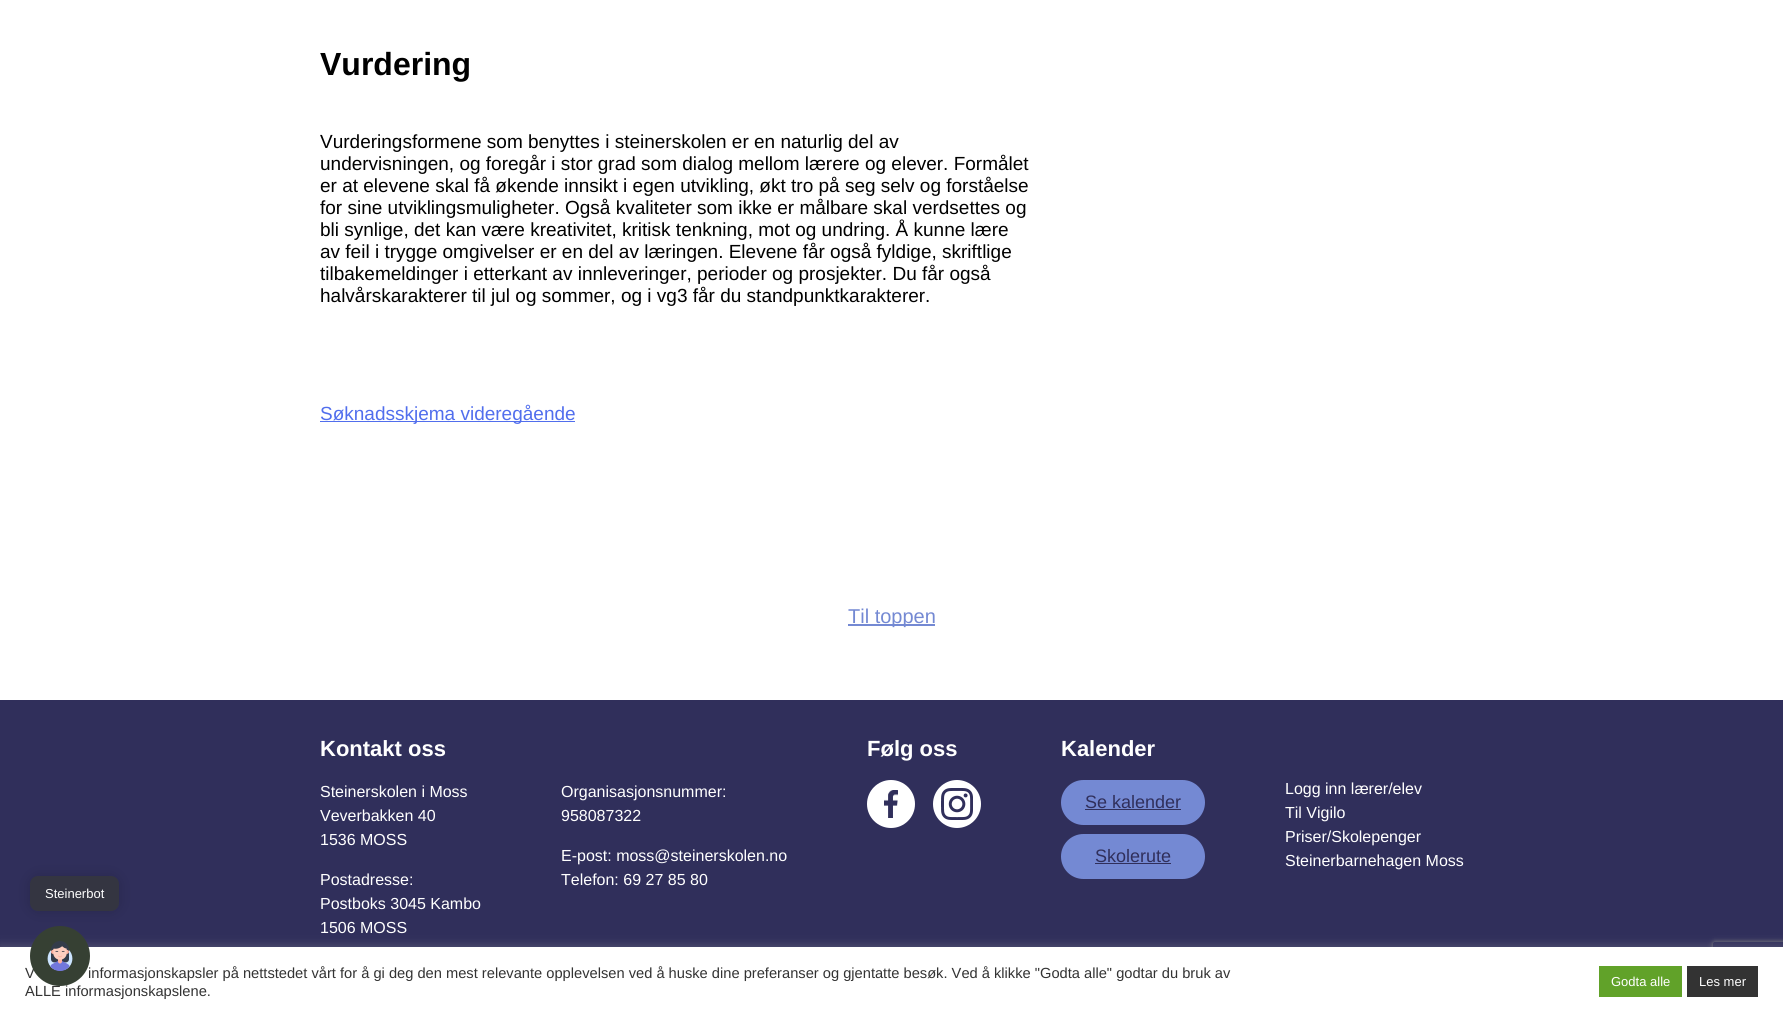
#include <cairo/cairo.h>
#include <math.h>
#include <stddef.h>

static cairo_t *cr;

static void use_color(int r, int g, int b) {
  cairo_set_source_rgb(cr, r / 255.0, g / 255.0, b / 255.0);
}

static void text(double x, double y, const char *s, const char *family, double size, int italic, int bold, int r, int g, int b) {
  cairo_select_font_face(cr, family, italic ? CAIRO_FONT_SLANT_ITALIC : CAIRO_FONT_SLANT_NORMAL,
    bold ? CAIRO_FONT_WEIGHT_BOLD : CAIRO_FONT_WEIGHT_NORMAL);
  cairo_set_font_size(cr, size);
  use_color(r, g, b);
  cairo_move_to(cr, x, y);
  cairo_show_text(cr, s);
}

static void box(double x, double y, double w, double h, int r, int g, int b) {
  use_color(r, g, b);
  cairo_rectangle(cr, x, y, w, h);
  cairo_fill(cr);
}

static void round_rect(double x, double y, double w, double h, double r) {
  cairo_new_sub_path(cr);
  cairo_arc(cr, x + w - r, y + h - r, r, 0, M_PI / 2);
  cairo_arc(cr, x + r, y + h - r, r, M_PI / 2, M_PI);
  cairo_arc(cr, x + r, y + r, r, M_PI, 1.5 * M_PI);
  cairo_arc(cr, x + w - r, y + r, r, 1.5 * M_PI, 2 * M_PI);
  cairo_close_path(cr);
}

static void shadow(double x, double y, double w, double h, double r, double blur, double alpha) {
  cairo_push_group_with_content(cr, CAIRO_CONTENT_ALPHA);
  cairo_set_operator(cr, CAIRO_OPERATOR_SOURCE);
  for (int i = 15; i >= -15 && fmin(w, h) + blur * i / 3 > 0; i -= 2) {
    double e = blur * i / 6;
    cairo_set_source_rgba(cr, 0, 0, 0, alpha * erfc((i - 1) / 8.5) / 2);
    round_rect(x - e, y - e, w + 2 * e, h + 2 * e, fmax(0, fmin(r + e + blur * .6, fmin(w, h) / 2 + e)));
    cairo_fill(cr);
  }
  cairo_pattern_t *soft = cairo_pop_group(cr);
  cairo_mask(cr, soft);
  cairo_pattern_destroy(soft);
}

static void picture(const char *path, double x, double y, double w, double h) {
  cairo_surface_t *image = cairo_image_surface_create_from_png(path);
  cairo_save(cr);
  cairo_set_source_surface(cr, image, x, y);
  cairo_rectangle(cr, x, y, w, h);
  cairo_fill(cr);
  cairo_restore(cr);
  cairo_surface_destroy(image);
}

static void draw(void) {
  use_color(255, 255, 255);
  cairo_paint(cr);
  box(0, 700, 1783, 247, 48, 47, 91);
  use_color(0, 0, 0);
  shadow(30, 876, 89, 35, 8, 7.5, 0.15);
  use_color(52, 53, 65);
  round_rect(30, 876, 89, 35, 8);
  cairo_fill(cr);
  box(320, 421, 255, 1, 81, 110, 237);
  box(848, 624, 87, 2, 116, 137, 211);
  use_color(255, 255, 255);
  cairo_arc(cr, 891, 804, 24, 0, 2 * M_PI);
  cairo_fill(cr);
  picture("img_02.png", 884, 790, 14, 28);
  cairo_arc(cr, 957, 804, 24, 0, 2 * M_PI);
  cairo_fill(cr);
  picture("img_03.png", 941, 788, 32, 32);
  use_color(116, 137, 211);
  round_rect(1061, 780, 144, 45, 22.5);
  cairo_fill(cr);
  box(1085, 809, 96, 1, 48, 47, 91);
  use_color(116, 137, 211);
  round_rect(1061, 834, 144, 45, 22.5);
  cairo_fill(cr);
  box(1095, 863, 76, 1, 48, 47, 91);
  use_color(172, 171, 171);
  shadow(0, 946, 1783, 69, 0, 5, 0.3);
  cairo_save(cr);
  cairo_set_fill_rule(cr, CAIRO_FILL_RULE_EVEN_ODD);
  cairo_new_path(cr);
  cairo_move_to(cr, 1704, 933);
  cairo_line_to(cr, 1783, 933);
  cairo_line_to(cr, 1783, 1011);
  cairo_line_to(cr, 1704, 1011);
  cairo_close_path(cr);
  cairo_move_to(cr, 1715, 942);
  cairo_line_to(cr, 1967, 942);
  cairo_curve_to(cr, 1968, 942, 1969, 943, 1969, 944);
  cairo_line_to(cr, 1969, 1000);
  cairo_curve_to(cr, 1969, 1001, 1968, 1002, 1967, 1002);
  cairo_line_to(cr, 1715, 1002);
  cairo_curve_to(cr, 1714, 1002, 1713, 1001, 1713, 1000);
  cairo_line_to(cr, 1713, 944);
  cairo_curve_to(cr, 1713, 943, 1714, 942, 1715, 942);
  cairo_close_path(cr);
  cairo_clip(cr);
  use_color(128, 128, 128);
  shadow(1713, 942, 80, 60, 2, 2.5, 1);
  cairo_restore(cr);
  box(0, 947, 1783, 69, 255, 255, 255);
  box(1599, 966, 83, 31, 97, 162, 41);
  box(1687, 966, 71, 31, 51, 51, 51);
  text(45, 898, "Steinerbot", "Liberation Sans", 13, 0, 0, 255, 255, 255);
  text(320, 75, "Vurdering", "Liberation Sans", 32, 0, 1, 0, 0, 0);
  text(320, 148, "Vurderingsformene som benyttes i steinerskolen er en naturlig del av", "Liberation Sans", 19, 0, 0, 0, 0, 0);
  text(320, 170, "undervisningen, og foregår i stor grad som dialog mellom lærere og elever. Formålet", "Liberation Sans", 19, 0, 0, 0, 0, 0);
  text(320, 192, "er at elevene skal få økende innsikt i egen utvikling, økt tro på seg selv og forståelse", "Liberation Sans", 19, 0, 0, 0, 0, 0);
  text(320, 214, "for sine utviklingsmuligheter. Også kvaliteter som ikke er målbare skal verdsettes og", "Liberation Sans", 19, 0, 0, 0, 0, 0);
  text(320, 236, "bli synlige, det kan være kreativitet, kritisk tenkning, mot og undring. Å kunne lære", "Liberation Sans", 19, 0, 0, 0, 0, 0);
  text(320, 258, "av feil i trygge omgivelser er en del av læringen. Elevene får også fyldige, skriftlige", "Liberation Sans", 19, 0, 0, 0, 0, 0);
  text(320, 280, "tilbakemeldinger i etterkant av innleveringer, perioder og prosjekter. Du får også", "Liberation Sans", 19, 0, 0, 0, 0, 0);
  text(320, 302, "halvårskarakterer til jul og sommer, og i vg3 får du standpunktkarakterer.", "Liberation Sans", 19, 0, 0, 0, 0, 0);
  text(320, 420, "Søknadsskjema videregående", "Liberation Sans", 19, 0, 0, 81, 110, 237);
  text(848, 623, "Til toppen", "Liberation Sans", 20, 0, 0, 116, 137, 211);
  text(320, 756, "Kontakt oss", "Liberation Sans", 22, 0, 1, 255, 255, 255);
  text(320, 797, "Steinerskolen i Moss", "Liberation Sans", 16, 0, 0, 255, 255, 255);
  text(320, 821, "Veverbakken 40", "Liberation Sans", 16, 0, 0, 255, 255, 255);
  text(320, 845, "1536 MOSS", "Liberation Sans", 16, 0, 0, 255, 255, 255);
  text(320, 885, "Postadresse:", "Liberation Sans", 16, 0, 0, 255, 255, 255);
  text(320, 909, "Postboks 3045 Kambo", "Liberation Sans", 16, 0, 0, 255, 255, 255);
  text(320, 933, "1506 MOSS", "Liberation Sans", 16, 0, 0, 255, 255, 255);
  text(561, 797, "Organisasjonsnummer:", "Liberation Sans", 16, 0, 0, 255, 255, 255);
  text(561, 821, "958087322", "Liberation Sans", 16, 0, 0, 255, 255, 255);
  text(561, 861, "E-post: moss@steinerskolen.no", "Liberation Sans", 16, 0, 0, 255, 255, 255);
  text(561, 885, "Telefon: 69 27 85 80", "Liberation Sans", 16, 0, 0, 255, 255, 255);
  text(867, 756, "Følg oss", "Liberation Sans", 22, 0, 1, 255, 255, 255);
  text(1061, 756, "Kalender", "Liberation Sans", 22, 0, 1, 255, 255, 255);
  text(1085, 808, "Se kalender", "Liberation Sans", 18, 0, 0, 48, 47, 91);
  text(1095, 862, "Skolerute", "Liberation Sans", 18, 0, 0, 48, 47, 91);
  text(1285, 794, "Logg inn lærer/elev", "Liberation Sans", 16, 0, 0, 255, 255, 255);
  text(1285, 818, "Til Vigilo", "Liberation Sans", 16, 0, 0, 255, 255, 255);
  text(1285, 842, "Priser/Skolepenger", "Liberation Sans", 16, 0, 0, 255, 255, 255);
  text(1285, 866, "Steinerbarnehagen Moss", "Liberation Sans", 16, 0, 0, 255, 255, 255);
  text(25, 978, "V", "Liberation Sans", 14.67, 0, 0, 51, 51, 51);
  text(88, 978, "informasjonskapsler på nettstedet vårt for å gi deg den mest relevante opplevelsen ved å huske dine preferanser og gjentatte besøk. Ved å klikke \"Godta alle\" godtar du bruk av", "Liberation Sans", 14.67, 0, 0, 51, 51, 51);
  text(25, 996, "ALLE informasjonskapslene.", "Liberation Sans", 14.67, 0, 0, 51, 51, 51);
  use_color(54, 64, 51);
  cairo_new_path(cr);
  cairo_arc(cr, 60, 956, 30, 0, 2 * M_PI);
  cairo_fill(cr);
  picture("img_01.png", 47, 941, 26, 30);
  text(1611, 986, "Godta alle", "Liberation Sans", 13, 0, 0, 255, 255, 255);
  text(1699, 986, "Les mer", "Liberation Sans", 13, 0, 0, 255, 255, 255);
}

int main(void) {
  cairo_surface_t *surface = cairo_image_surface_create(CAIRO_FORMAT_RGB24, 1783, 1016);
  cr = cairo_create(surface);
  cairo_font_options_t *options = cairo_font_options_create();
  cairo_font_options_set_hint_metrics(options, CAIRO_HINT_METRICS_OFF);
  cairo_font_options_set_hint_style(options, CAIRO_HINT_STYLE_NONE);
  cairo_set_font_options(cr, options);
  cairo_set_miter_limit(cr, 4);
  draw();
  cairo_surface_write_to_png(surface, "out.png");
  cairo_font_options_destroy(options);
  cairo_destroy(cr);
  cairo_surface_destroy(surface);
  return 0;
}
